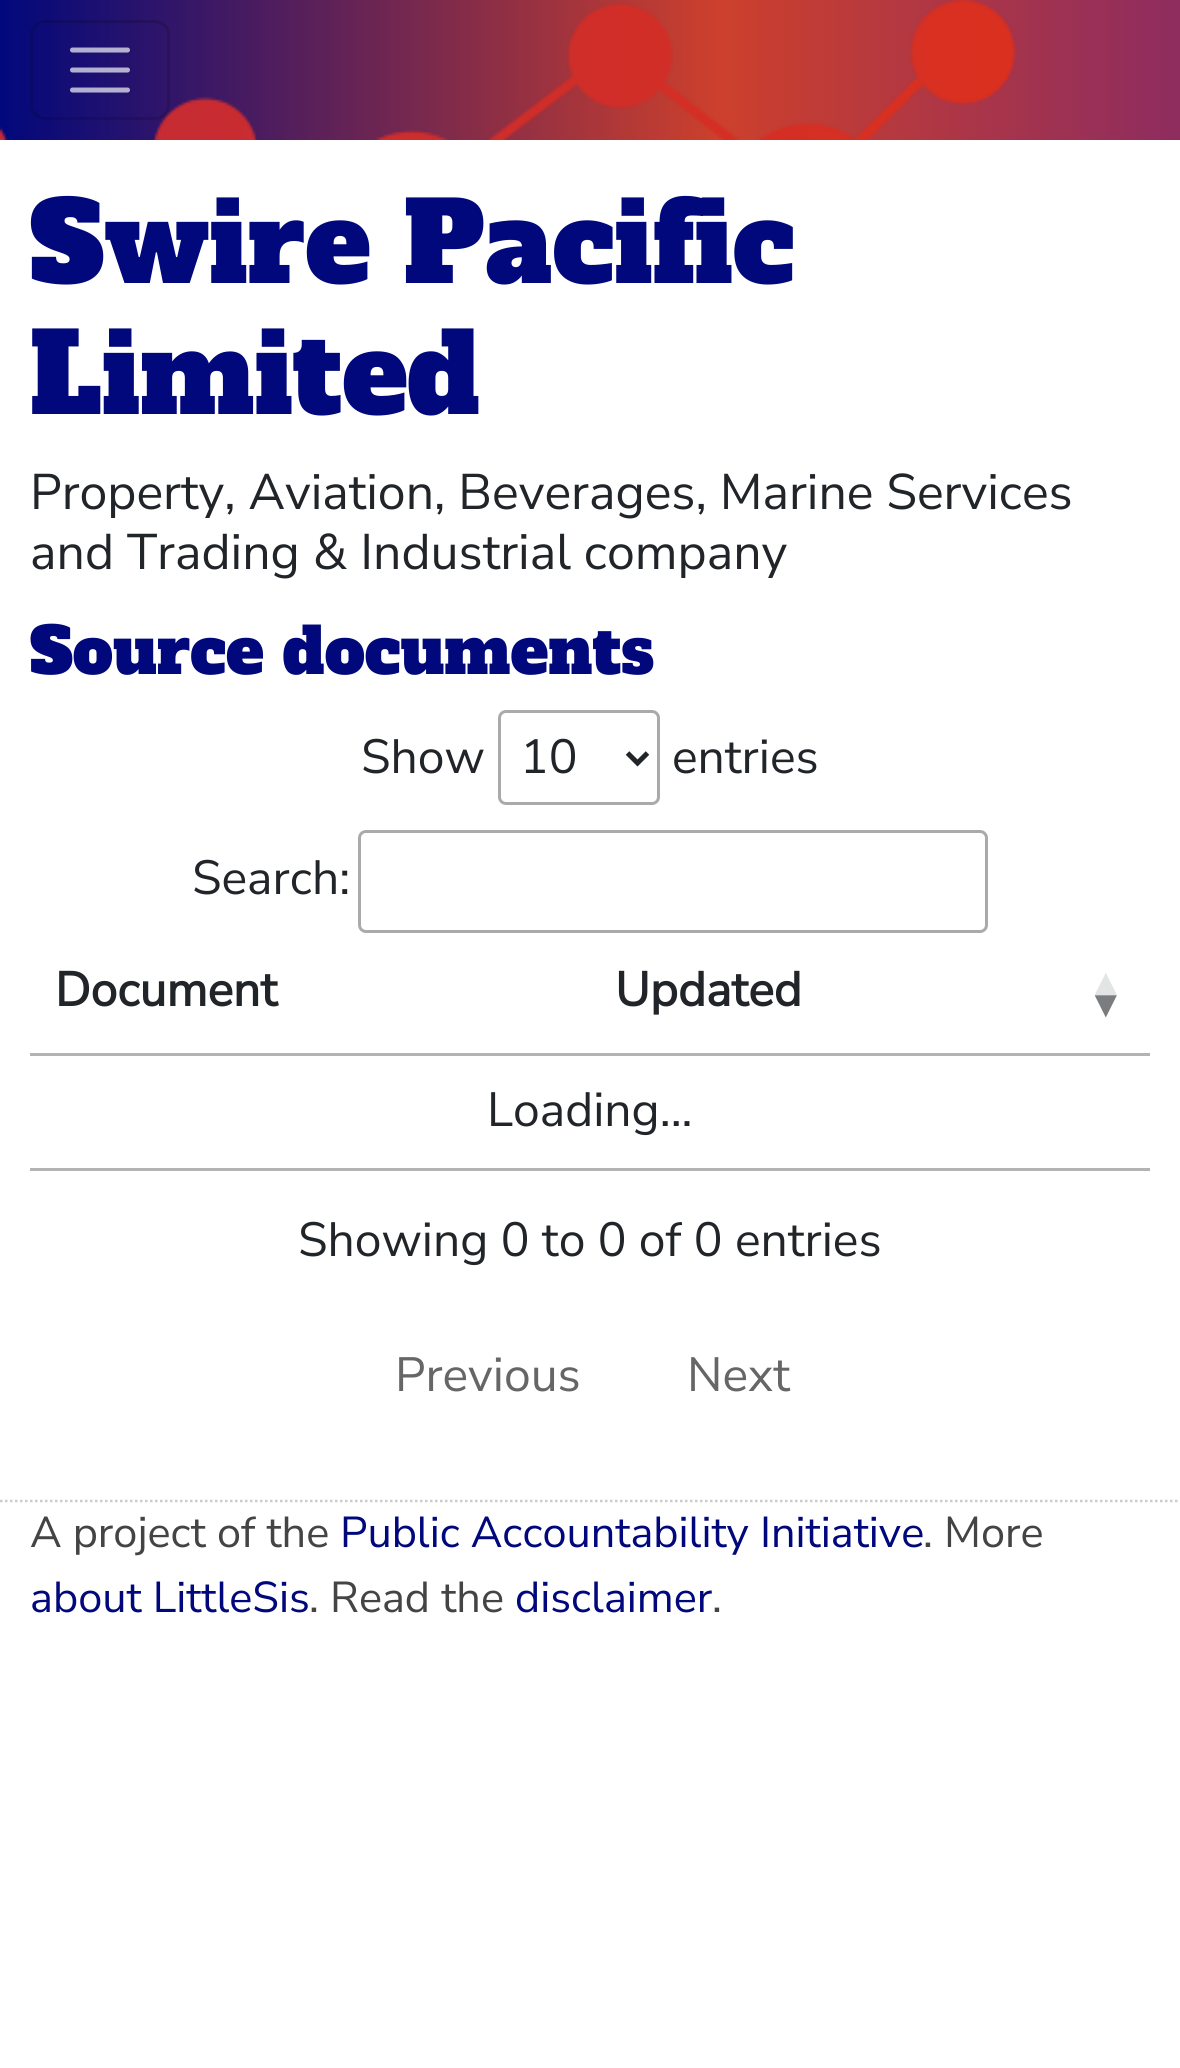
#include <cairo/cairo.h>
#include <math.h>
#include <stddef.h>

static cairo_t *cr;

static void use_color(int r, int g, int b) {
  cairo_set_source_rgb(cr, r / 255.0, g / 255.0, b / 255.0);
}

static void text(double x, double y, const char *s, const char *family, double size, int italic, int bold, int r, int g, int b) {
  cairo_select_font_face(cr, family, italic ? CAIRO_FONT_SLANT_ITALIC : CAIRO_FONT_SLANT_NORMAL,
    bold ? CAIRO_FONT_WEIGHT_BOLD : CAIRO_FONT_WEIGHT_NORMAL);
  cairo_set_font_size(cr, size);
  use_color(r, g, b);
  cairo_move_to(cr, x, y);
  cairo_show_text(cr, s);
}

static void box(double x, double y, double w, double h, int r, int g, int b) {
  use_color(r, g, b);
  cairo_rectangle(cr, x, y, w, h);
  cairo_fill(cr);
}

static void round_rect(double x, double y, double w, double h, double r) {
  cairo_new_sub_path(cr);
  cairo_arc(cr, x + w - r, y + h - r, r, 0, M_PI / 2);
  cairo_arc(cr, x + r, y + h - r, r, M_PI / 2, M_PI);
  cairo_arc(cr, x + r, y + r, r, M_PI, 1.5 * M_PI);
  cairo_arc(cr, x + w - r, y + r, r, 1.5 * M_PI, 2 * M_PI);
  cairo_close_path(cr);
}

static void picture(const char *path, double x, double y, double w, double h) {
  cairo_surface_t *image = cairo_image_surface_create_from_png(path);
  cairo_save(cr);
  cairo_set_source_surface(cr, image, x, y);
  cairo_rectangle(cr, x, y, w, h);
  cairo_fill(cr);
  cairo_restore(cr);
  cairo_surface_destroy(image);
}

static void draw(void) {
  use_color(255, 255, 255);
  cairo_paint(cr);
  picture("img_01.png", 0, 0, 1180, 140);
  round_rect(31.5, 21.5, 137, 97, 13.5);
  cairo_set_source_rgba(cr, 0, 0, 0, 0.15);
  cairo_set_line_width(cr, 3);
  cairo_stroke(cr);
  cairo_new_path(cr);
  cairo_move_to(cr, 72.5, 50);
  cairo_line_to(cr, 127.5, 50);
  cairo_move_to(cr, 72.5, 70);
  cairo_line_to(cr, 127.5, 70);
  cairo_move_to(cr, 72.5, 90);
  cairo_line_to(cr, 127.5, 90);
  cairo_set_source_rgba(cr, 0.898, 0.902, 0.945, 0.75);
  cairo_set_line_width(cr, 5);
  cairo_set_line_cap(cr, CAIRO_LINE_CAP_ROUND);
  cairo_stroke(cr);
  round_rect(499.5, 711.5, 159, 92, 6.5);
  use_color(170, 170, 170);
  cairo_set_line_width(cr, 3);
  cairo_set_line_cap(cr, CAIRO_LINE_CAP_BUTT);
  cairo_stroke(cr);
  cairo_new_path(cr);
  cairo_move_to(cr, 627.5, 753);
  cairo_line_to(cr, 637.5, 763);
  cairo_line_to(cr, 647.5, 753);
  use_color(33, 37, 41);
  cairo_set_line_width(cr, 5);
  cairo_stroke(cr);
  round_rect(359.5, 831.5, 627, 100, 6.5);
  use_color(170, 170, 170);
  cairo_set_line_width(cr, 3);
  cairo_stroke(cr);
  box(30, 1168, 1120, 3, 179, 179, 179);
  box(30, 1053, 1120, 3, 179, 179, 179);
  cairo_new_path(cr);
  cairo_move_to(cr, 0, 1501);
  cairo_line_to(cr, 1180, 1501);
  use_color(204, 204, 204);
  cairo_set_line_width(cr, 2.5);
  cairo_set_dash(cr, (double[]){2.5, 2.5}, 2, 0);
  cairo_stroke(cr);
  text(30, 283, "Swire Pacific", "Alfa Slab One", 110, 0, 0, 1, 8, 124);
  text(30, 414, "Limited", "Alfa Slab One", 110, 0, 0, 1, 8, 124);
  text(30, 509, "Property, Aviation, Beverages, Marine Services", "Nunito Sans", 50, 0, 0, 33, 37, 41);
  text(30, 569, "and Trading & Industrial company", "Nunito Sans", 50, 0, 0, 33, 37, 41);
  text(30, 674, "Source documents", "Alfa Slab One", 63.6, 0, 0, 1, 8, 124);
  text(361, 773, "Show", "Nunito Sans", 48, 0, 0, 33, 37, 41);
  text(520, 773, "10", "Nunito Sans", 48, 0, 0, 33, 37, 41);
  text(672, 773, "entries", "Nunito Sans", 48, 0, 0, 33, 37, 41);
  text(192, 894, "Search:", "Nunito Sans", 48, 0, 0, 33, 37, 41);
  text(55, 1006, "Document", "Nunito Sans", 48, 0, 1, 33, 37, 41);
  text(615, 1006, "Updated", "Nunito Sans", 48, 0, 1, 33, 37, 41);
  text(1087, 995, "▲", "Liberation Sans", 38, 0, 1, 227, 228, 228);
  text(1087, 1017, "▼", "Liberation Sans", 38, 0, 1, 122, 124, 127);
  text(487, 1126, "Loading...", "Nunito Sans", 48, 0, 0, 33, 37, 41);
  text(298, 1256, "Showing 0 to 0 of 0 entries", "Nunito Sans", 48, 0, 0, 33, 37, 41);
  text(395, 1391, "Previous", "Nunito Sans", 48, 0, 0, 102, 102, 102);
  text(687, 1391, "Next", "Nunito Sans", 48, 0, 0, 102, 102, 102);
  text(30, 1547, "A project of the", "Nunito Sans", 43.25, 0, 0, 68, 68, 68);
  text(340, 1547, "Public Accountability Initiative", "Nunito Sans", 43.25, 0, 0, 1, 8, 124);
  text(923, 1547, ". More", "Nunito Sans", 43.25, 0, 0, 68, 68, 68);
  text(30, 1612, "about LittleSis", "Nunito Sans", 43.25, 0, 0, 1, 8, 124);
  text(309, 1612, ". Read the", "Nunito Sans", 43.25, 0, 0, 68, 68, 68);
  text(515, 1612, "disclaimer", "Nunito Sans", 43.25, 0, 0, 1, 8, 124);
  text(712, 1612, ".", "Nunito Sans", 43.25, 0, 0, 68, 68, 68);
}

int main(void) {
  cairo_surface_t *surface = cairo_image_surface_create(CAIRO_FORMAT_RGB24, 1180, 2068);
  cr = cairo_create(surface);
  cairo_font_options_t *options = cairo_font_options_create();
  cairo_font_options_set_hint_metrics(options, CAIRO_HINT_METRICS_OFF);
  cairo_font_options_set_hint_style(options, CAIRO_HINT_STYLE_NONE);
  cairo_set_font_options(cr, options);
  cairo_set_miter_limit(cr, 4);
  draw();
  cairo_surface_write_to_png(surface, "out.png");
  cairo_font_options_destroy(options);
  cairo_destroy(cr);
  cairo_surface_destroy(surface);
  return 0;
}
